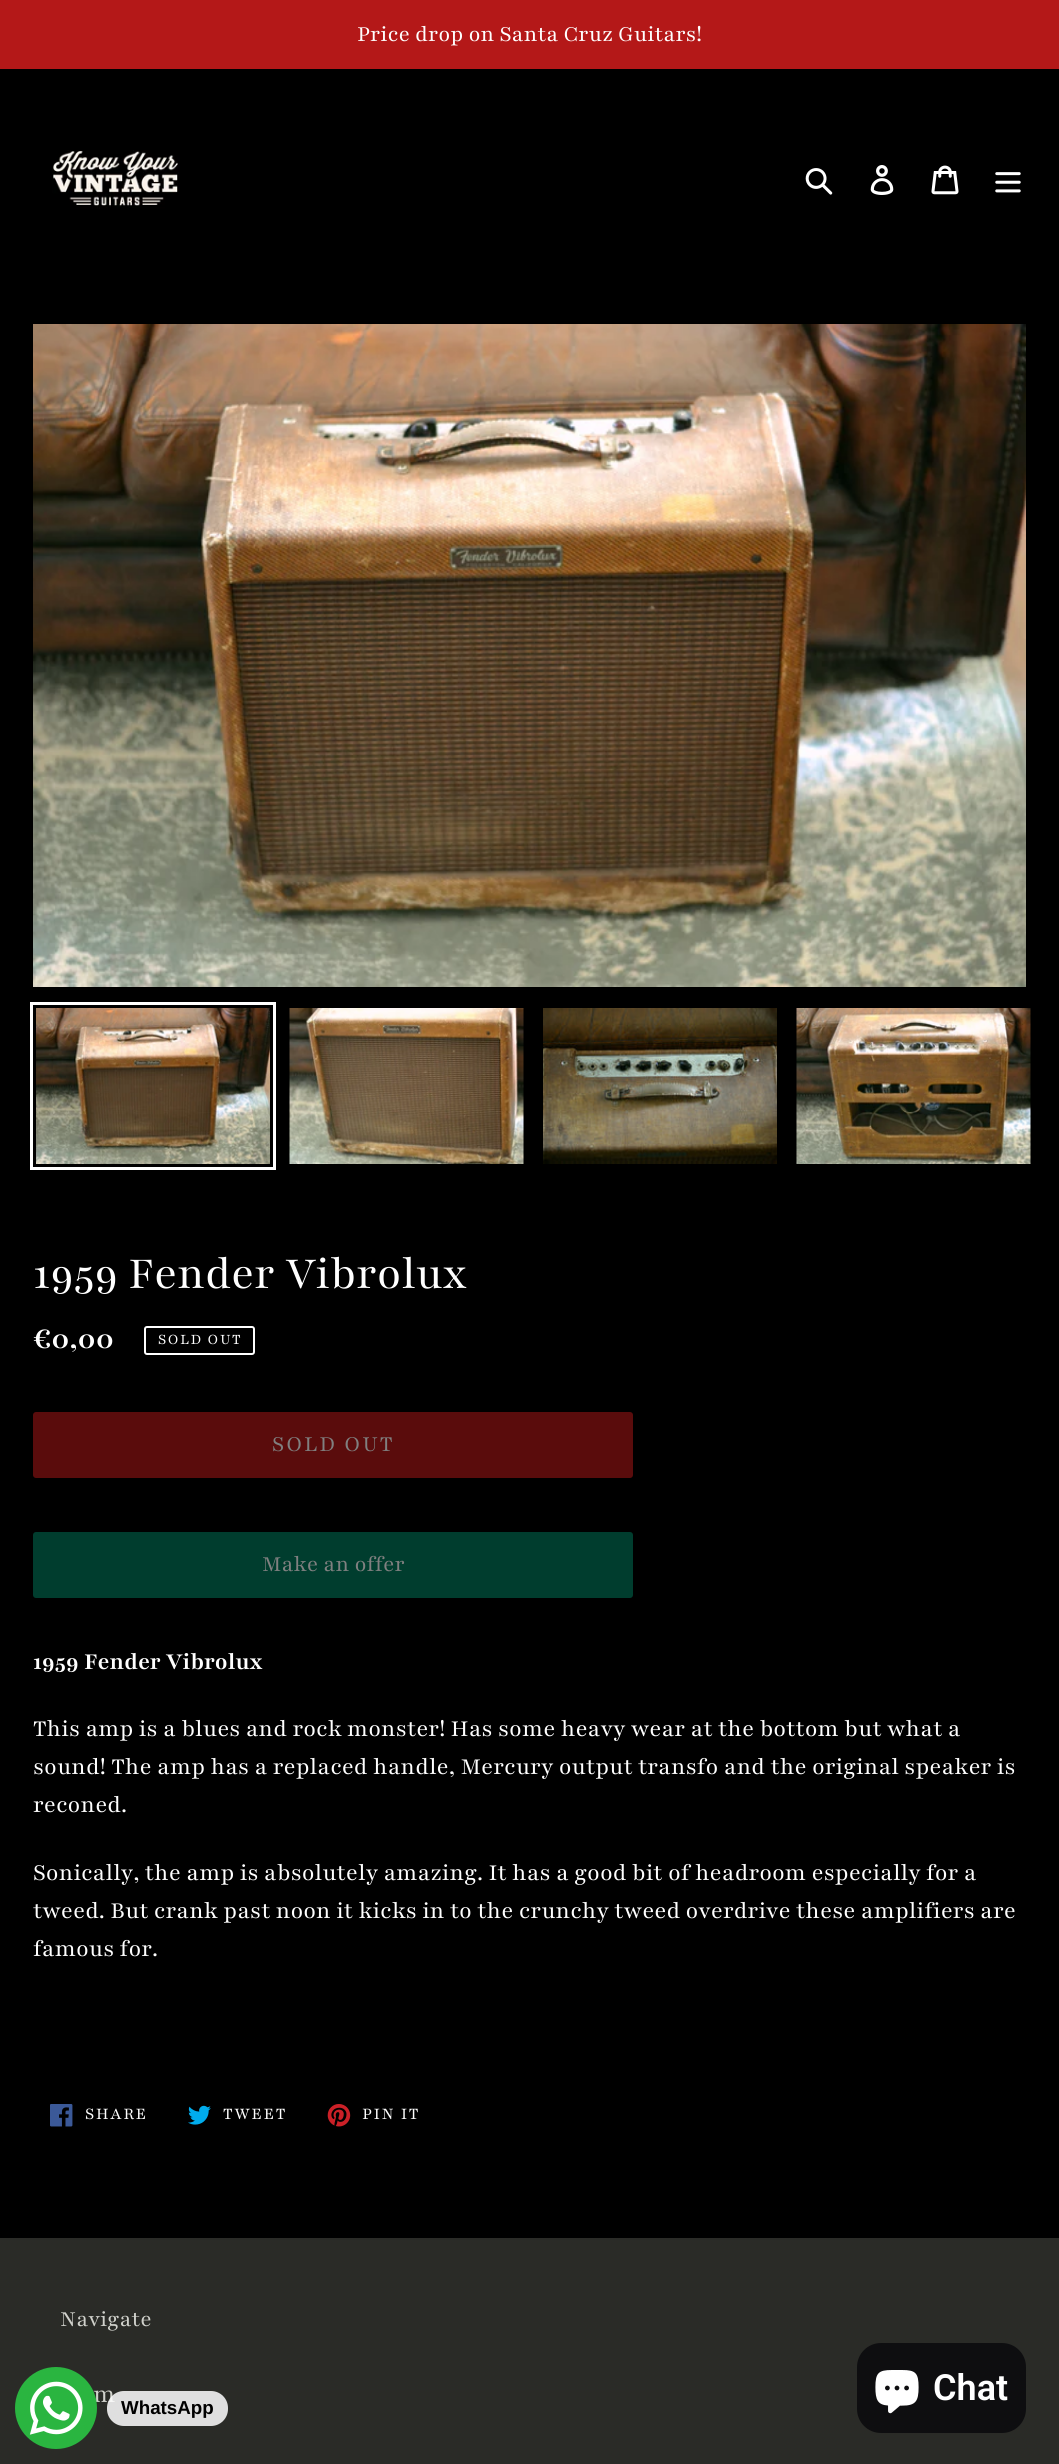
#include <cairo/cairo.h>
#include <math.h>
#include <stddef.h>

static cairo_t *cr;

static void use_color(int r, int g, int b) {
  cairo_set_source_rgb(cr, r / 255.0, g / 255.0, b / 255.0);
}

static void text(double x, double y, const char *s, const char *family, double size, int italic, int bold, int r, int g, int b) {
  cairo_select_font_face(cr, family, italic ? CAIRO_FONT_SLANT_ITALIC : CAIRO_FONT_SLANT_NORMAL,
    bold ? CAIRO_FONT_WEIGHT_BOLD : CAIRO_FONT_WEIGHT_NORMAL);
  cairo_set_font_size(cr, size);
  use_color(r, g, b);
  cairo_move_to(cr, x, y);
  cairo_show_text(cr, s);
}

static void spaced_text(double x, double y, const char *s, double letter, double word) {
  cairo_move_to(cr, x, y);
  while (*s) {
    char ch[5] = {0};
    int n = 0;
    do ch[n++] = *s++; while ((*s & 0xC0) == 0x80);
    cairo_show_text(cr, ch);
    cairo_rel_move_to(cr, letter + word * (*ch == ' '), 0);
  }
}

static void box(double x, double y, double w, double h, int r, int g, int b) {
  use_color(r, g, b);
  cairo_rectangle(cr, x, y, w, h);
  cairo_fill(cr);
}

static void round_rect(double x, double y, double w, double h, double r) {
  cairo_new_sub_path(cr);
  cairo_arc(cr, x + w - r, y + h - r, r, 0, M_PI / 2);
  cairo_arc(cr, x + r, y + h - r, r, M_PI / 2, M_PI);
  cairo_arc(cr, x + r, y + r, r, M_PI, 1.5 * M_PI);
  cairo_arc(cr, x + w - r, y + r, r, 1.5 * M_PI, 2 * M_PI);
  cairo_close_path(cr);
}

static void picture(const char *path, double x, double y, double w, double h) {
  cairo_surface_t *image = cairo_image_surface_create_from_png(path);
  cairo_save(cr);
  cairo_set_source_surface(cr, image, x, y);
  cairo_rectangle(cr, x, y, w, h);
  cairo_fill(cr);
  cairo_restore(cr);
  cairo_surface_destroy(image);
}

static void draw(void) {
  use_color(0, 0, 0);
  cairo_paint(cr);
  box(0, 0, 1059, 69, 180, 24, 24);
  picture("img_01.png", 52, 150, 128, 59);
  picture("img_02.png", 805, 168, 28, 27);
  picture("img_03.png", 870, 165, 24, 30);
  picture("img_04.png", 931, 165, 28, 30);
  picture("img_05.png", 995, 172, 26, 21);
  picture("img_06.png", 33, 324, 993, 663);
  cairo_rectangle(cr, 31.5, 1003.5, 243, 165);
  use_color(255, 255, 255);
  cairo_set_line_width(cr, 3);
  cairo_stroke(cr);
  picture("img_07.png", 36, 1008, 234, 156);
  picture("img_08.png", 289, 1008, 235, 156);
  picture("img_09.png", 543, 1008, 234, 156);
  picture("img_10.png", 796, 1008, 235, 156);
  round_rect(145, 1327, 109, 27, 2);
  cairo_set_line_width(cr, 2);
  cairo_stroke(cr);
  use_color(90, 12, 12);
  round_rect(33, 1412, 600, 66, 3);
  cairo_fill(cr);
  use_color(0, 61, 46);
  round_rect(34, 1533, 598, 64, 2);
  cairo_fill_preserve(cr);
  cairo_stroke(cr);
  picture("img_11.png", 50, 2104, 23, 23);
  picture("img_12.png", 188, 2105, 23, 20);
  picture("img_13.png", 327, 2104, 24, 23);
  box(0, 2238, 1059, 226, 42, 43, 39);
  use_color(14, 14, 16);
  round_rect(857, 2343, 169, 90, 24);
  cairo_fill(cr);
  picture("img_14.png", 875, 2370, 44, 44);
  text(357, 41, "Price drop on Santa Cruz Guitars!", "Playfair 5", 24, 0, 0, 255, 255, 255);
  text(33, 1288, "1959 Fender Vibrolux", "Playfair", 49.5, 0, 0, 255, 255, 255);
  text(33, 1348, "€0,00", "Playfair", 32, 0, 1, 255, 255, 255);
  cairo_select_font_face(cr, "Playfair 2", CAIRO_FONT_SLANT_NORMAL, CAIRO_FONT_WEIGHT_NORMAL);
  cairo_set_font_size(cr, 16);
  spaced_text(158, 1344, "SOLD OUT", 1.5, 0);
  cairo_select_font_face(cr, "Playfair 5", CAIRO_FONT_SLANT_NORMAL, CAIRO_FONT_WEIGHT_NORMAL);
  cairo_set_font_size(cr, 24);
  use_color(128, 128, 128);
  spaced_text(272, 1451, "SOLD OUT", 2, 0);
  text(262, 1571, "Make an offer", "Playfair 5", 24, 0, 0, 128, 128, 128);
  text(33, 1669, "1959 Fender Vibrolux", "Playfair 2", 25.5, 0, 1, 255, 255, 255);
  text(33, 1736, "This amp is a blues and rock monster! Has some heavy wear at the bottom but what a", "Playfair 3", 25.5, 0, 0, 255, 255, 255);
  text(33, 1774, "sound! The amp has a replaced handle, Mercury output transfo and the original speaker is", "Playfair 3", 25.5, 0, 0, 255, 255, 255);
  text(33, 1812, "reconed.", "Playfair 3", 25.5, 0, 0, 255, 255, 255);
  text(33, 1880, "Sonically, the amp is absolutely amazing. It has a good bit of headroom especially for a", "Playfair 3", 25.5, 0, 0, 255, 255, 255);
  text(33, 1918, "tweed. But crank past noon it kicks in to the crunchy tweed overdrive these amplifiers are", "Playfair 3", 25.5, 0, 0, 255, 255, 255);
  text(33, 1956, "famous for.", "Playfair 3", 25.5, 0, 0, 255, 255, 255);
  cairo_select_font_face(cr, "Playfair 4", CAIRO_FONT_SLANT_NORMAL, CAIRO_FONT_WEIGHT_NORMAL);
  cairo_set_font_size(cr, 18);
  spaced_text(85, 2119, "SHARE", 1.5, 0);
  spaced_text(223, 2119, "TWEET", 1.5, 0);
  spaced_text(362, 2119, "PIN IT", 1.5, 0);
  text(60, 2326, "Navigate", "Playfair 5", 24, 0, 0, 209, 210, 204);
  text(93, 2402, "m", "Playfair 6", 27, 0, 0, 209, 210, 204);
  text(933, 2400, "Chat", "Roboto SemiBold", 36, 0, 0, 255, 255, 255);
  picture("img_15.png", 15, 2367, 82, 82);
  cairo_set_source_rgba(cr, 1, 1, 1, 0.85);
  round_rect(107, 2391, 121, 35, 17);
  cairo_fill(cr);
  text(121, 2414, "WhatsApp", "Liberation Sans", 18.75, 0, 1, 0, 0, 0);
}

int main(void) {
  cairo_surface_t *surface = cairo_image_surface_create(CAIRO_FORMAT_RGB24, 1059, 2464);
  cr = cairo_create(surface);
  cairo_font_options_t *options = cairo_font_options_create();
  cairo_font_options_set_hint_metrics(options, CAIRO_HINT_METRICS_OFF);
  cairo_font_options_set_hint_style(options, CAIRO_HINT_STYLE_NONE);
  cairo_set_font_options(cr, options);
  cairo_set_miter_limit(cr, 4);
  draw();
  cairo_surface_write_to_png(surface, "out.png");
  cairo_font_options_destroy(options);
  cairo_destroy(cr);
  cairo_surface_destroy(surface);
  return 0;
}
